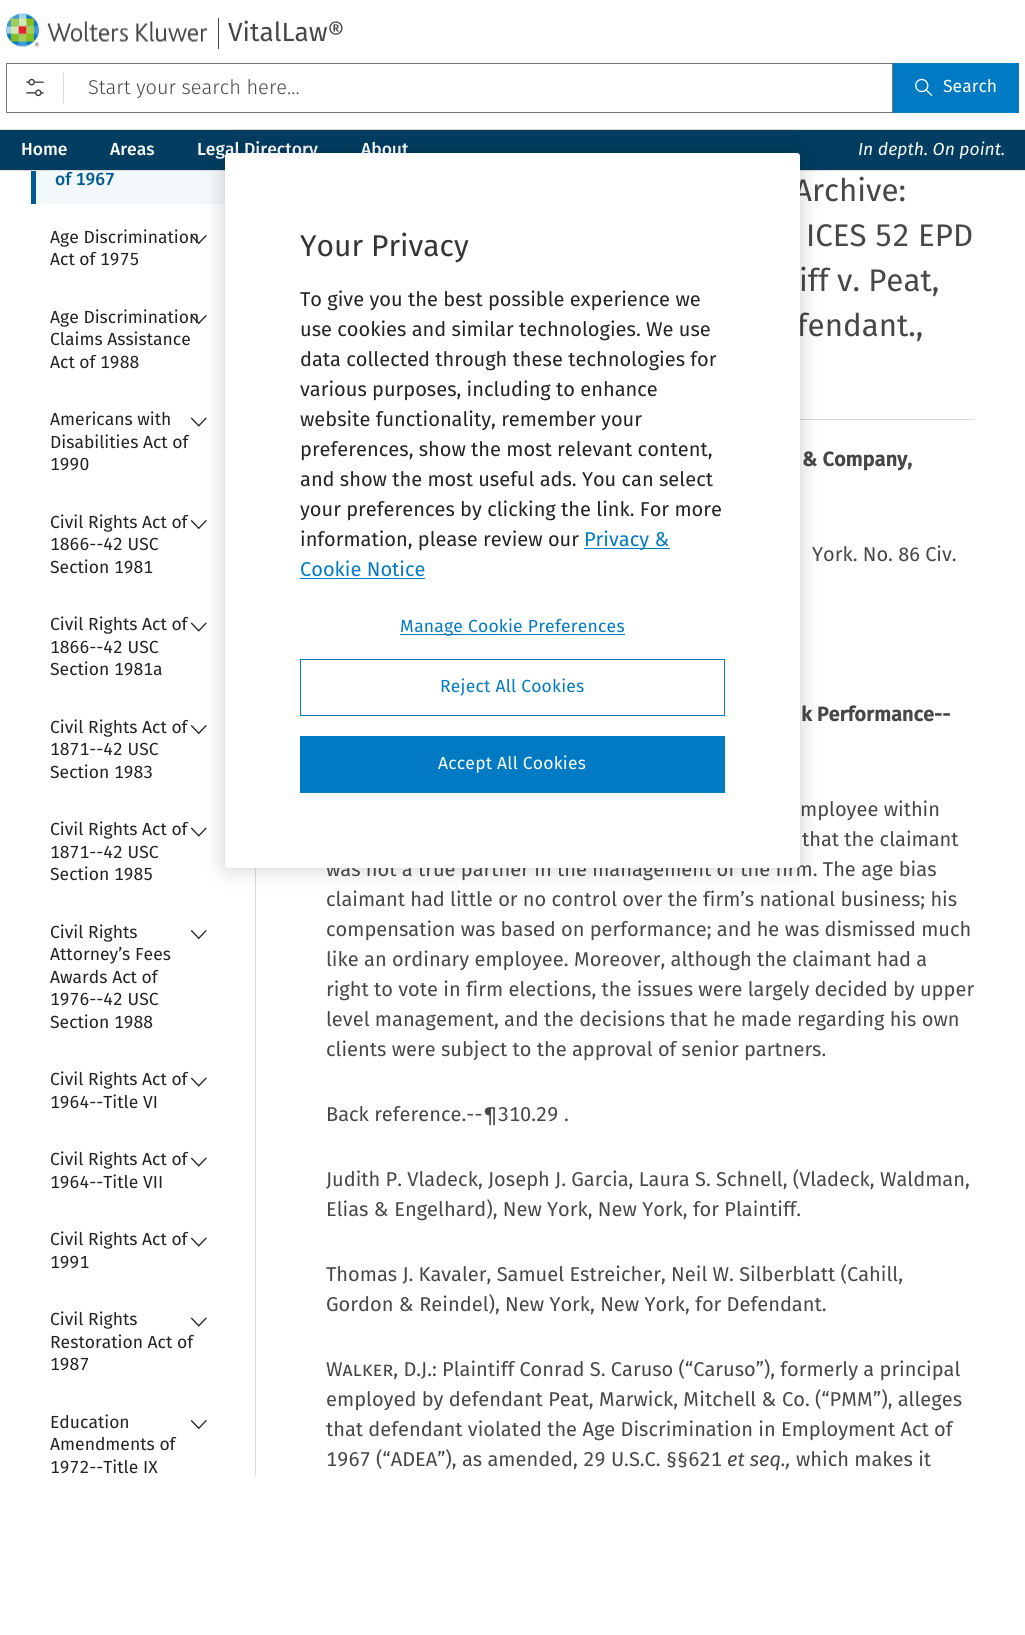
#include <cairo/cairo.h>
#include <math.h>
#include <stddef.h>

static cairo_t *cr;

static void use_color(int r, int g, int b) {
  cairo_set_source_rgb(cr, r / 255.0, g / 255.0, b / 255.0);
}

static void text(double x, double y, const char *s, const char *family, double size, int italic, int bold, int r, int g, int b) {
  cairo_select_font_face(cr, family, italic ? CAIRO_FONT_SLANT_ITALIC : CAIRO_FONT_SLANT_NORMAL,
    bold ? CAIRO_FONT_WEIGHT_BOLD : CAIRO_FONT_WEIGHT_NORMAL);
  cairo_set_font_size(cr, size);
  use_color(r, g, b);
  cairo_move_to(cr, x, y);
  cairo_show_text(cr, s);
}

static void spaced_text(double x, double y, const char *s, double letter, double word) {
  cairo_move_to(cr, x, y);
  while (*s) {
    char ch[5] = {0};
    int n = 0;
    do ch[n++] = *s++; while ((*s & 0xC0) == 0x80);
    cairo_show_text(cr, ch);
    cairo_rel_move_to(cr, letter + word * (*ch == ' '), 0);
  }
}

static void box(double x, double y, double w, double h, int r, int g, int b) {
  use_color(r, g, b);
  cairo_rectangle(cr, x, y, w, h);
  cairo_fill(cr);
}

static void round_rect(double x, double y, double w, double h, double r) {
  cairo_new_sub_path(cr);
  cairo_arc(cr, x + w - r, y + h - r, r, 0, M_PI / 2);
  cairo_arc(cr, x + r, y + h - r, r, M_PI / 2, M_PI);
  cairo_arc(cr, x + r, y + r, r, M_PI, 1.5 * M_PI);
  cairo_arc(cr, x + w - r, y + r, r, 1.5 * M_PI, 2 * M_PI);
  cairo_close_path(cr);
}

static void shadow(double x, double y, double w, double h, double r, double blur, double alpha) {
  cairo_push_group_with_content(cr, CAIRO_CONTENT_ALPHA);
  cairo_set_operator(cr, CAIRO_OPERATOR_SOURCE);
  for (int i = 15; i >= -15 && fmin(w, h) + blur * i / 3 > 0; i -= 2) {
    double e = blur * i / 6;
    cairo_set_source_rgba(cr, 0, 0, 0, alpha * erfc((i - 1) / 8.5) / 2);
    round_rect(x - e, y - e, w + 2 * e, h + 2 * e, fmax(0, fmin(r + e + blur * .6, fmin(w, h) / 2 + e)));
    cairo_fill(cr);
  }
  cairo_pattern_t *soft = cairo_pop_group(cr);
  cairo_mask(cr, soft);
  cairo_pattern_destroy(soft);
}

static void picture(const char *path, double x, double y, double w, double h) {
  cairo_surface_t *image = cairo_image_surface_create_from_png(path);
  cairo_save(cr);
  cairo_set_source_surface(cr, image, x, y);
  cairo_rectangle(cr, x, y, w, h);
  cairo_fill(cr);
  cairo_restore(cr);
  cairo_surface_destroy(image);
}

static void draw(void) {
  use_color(255, 255, 255);
  cairo_paint(cr);
  box(0, 129, 1025, 1, 218, 218, 218);
  picture("img_01.png", 6, 13, 202, 34);
  box(218, 18, 1, 31, 71, 71, 71);
  cairo_rectangle(cr, 6.5, 63.5, 886, 49);
  use_color(117, 117, 117);
  cairo_set_line_width(cr, 1);
  cairo_stroke(cr);
  picture("img_02.png", 26, 78, 18, 19);
  box(63, 73, 1, 30, 218, 218, 218);
  box(893, 63, 126, 50, 0, 122, 195);
  picture("img_03.png", 915, 78, 18, 19);
  box(0, 130, 1025, 40, 0, 61, 97);
  box(0, 170, 1025, 1, 218, 218, 218);
  box(255, 868, 1, 608, 218, 218, 218);
  box(36, 171, 189, 33, 243, 248, 252);
  box(31, 171, 5, 33, 0, 91, 146);
  picture("img_05.png", 190, 417, 17, 10);
  picture("img_06.png", 190, 520, 17, 10);
  picture("img_05.png", 190, 622, 17, 10);
  picture("img_06.png", 190, 725, 17, 10);
  picture("img_05.png", 190, 827, 17, 10);
  picture("img_06.png", 190, 930, 17, 10);
  picture("img_05.png", 190, 1077, 17, 10);
  picture("img_05.png", 190, 1157, 17, 10);
  picture("img_05.png", 190, 1237, 17, 10);
  picture("img_05.png", 190, 1317, 17, 10);
  picture("img_06.png", 190, 1420, 17, 10);
  box(800, 419, 175, 1, 218, 218, 218);
  text(228, 41, "VitalLaw®", "Fira Sans", 26.25, 0, 0, 71, 71, 71);
  text(88, 94, "Start your search here...", "Fira Sans Light", 20, 0, 0, 71, 71, 71);
  text(943, 92, "Search", "Fira Sans", 17.5, 0, 0, 255, 255, 255);
  text(21, 155, "Home", "Fira Sans Medium", 17.5, 0, 0, 255, 255, 255);
  text(110, 155, "Areas", "Fira Sans Medium", 17.5, 0, 0, 255, 255, 255);
  text(197, 155, "Legal Directory", "Fira Sans Medium", 17.5, 0, 0, 255, 255, 255);
  text(361, 155, "About", "Fira Sans Medium", 17.5, 0, 0, 255, 255, 255);
  text(858, 155, "In depth. On point.", "Fira Sans", 17.5, 1, 0, 255, 255, 255);
  text(55, 185, "of 1967", "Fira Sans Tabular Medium", 17.5, 0, 0, 0, 91, 146);
  text(50, 243, "Age Discrimination", "Fira Sans", 17.5, 0, 0, 35, 35, 35);
  text(50, 265, "Act of 1975", "Fira Sans Tabular", 17.5, 0, 0, 35, 35, 35);
  picture("img_04.png", 190, 235, 17, 10);
  text(50, 323, "Age Discrimination", "Fira Sans", 17.5, 0, 0, 35, 35, 35);
  text(50, 345, "Claims Assistance", "Fira Sans", 17.5, 0, 0, 35, 35, 35);
  text(50, 368, "Act of 1988", "Fira Sans Tabular", 17.5, 0, 0, 35, 35, 35);
  picture("img_04.png", 190, 315, 17, 10);
  text(50, 425, "Americans with", "Fira Sans", 17.5, 0, 0, 35, 35, 35);
  text(50, 448, "Disabilities Act of", "Fira Sans", 17.5, 0, 0, 35, 35, 35);
  text(50, 470, "1990", "Fira Sans Tabular", 17.5, 0, 0, 35, 35, 35);
  text(50, 528, "Civil Rights Act of", "Fira Sans", 17.5, 0, 0, 35, 35, 35);
  text(50, 550, "1866--42 USC", "Fira Sans Tabular", 17.5, 0, 0, 35, 35, 35);
  text(50, 573, "Section 1981", "Fira Sans Tabular", 17.5, 0, 0, 35, 35, 35);
  text(50, 630, "Civil Rights Act of", "Fira Sans", 17.5, 0, 0, 35, 35, 35);
  text(50, 653, "1866--42 USC", "Fira Sans Tabular", 17.5, 0, 0, 35, 35, 35);
  text(50, 675, "Section 1981a", "Fira Sans Tabular", 17.5, 0, 0, 35, 35, 35);
  text(50, 733, "Civil Rights Act of", "Fira Sans", 17.5, 0, 0, 35, 35, 35);
  text(50, 755, "1871--42 USC", "Fira Sans Tabular", 17.5, 0, 0, 35, 35, 35);
  text(50, 778, "Section 1983", "Fira Sans Tabular", 17.5, 0, 0, 35, 35, 35);
  text(50, 835, "Civil Rights Act of", "Fira Sans", 17.5, 0, 0, 35, 35, 35);
  text(50, 858, "1871--42 USC", "Fira Sans Tabular", 17.5, 0, 0, 35, 35, 35);
  text(50, 880, "Section 1985", "Fira Sans Tabular", 17.5, 0, 0, 35, 35, 35);
  text(50, 938, "Civil Rights", "Fira Sans", 17.5, 0, 0, 35, 35, 35);
  text(50, 960, "Attorney’s Fees", "Fira Sans", 17.5, 0, 0, 35, 35, 35);
  text(50, 983, "Awards Act of", "Fira Sans", 17.5, 0, 0, 35, 35, 35);
  text(50, 1005, "1976--42 USC", "Fira Sans Tabular", 17.5, 0, 0, 35, 35, 35);
  text(50, 1028, "Section 1988", "Fira Sans Tabular", 17.5, 0, 0, 35, 35, 35);
  text(50, 1085, "Civil Rights Act of", "Fira Sans", 17.5, 0, 0, 35, 35, 35);
  text(50, 1108, "1964--Title VI", "Fira Sans Tabular", 17.5, 0, 0, 35, 35, 35);
  text(50, 1165, "Civil Rights Act of", "Fira Sans", 17.5, 0, 0, 35, 35, 35);
  text(50, 1188, "1964--Title VII", "Fira Sans Tabular", 17.5, 0, 0, 35, 35, 35);
  text(50, 1245, "Civil Rights Act of", "Fira Sans", 17.5, 0, 0, 35, 35, 35);
  text(50, 1268, "1991", "Fira Sans Tabular", 17.5, 0, 0, 35, 35, 35);
  text(50, 1325, "Civil Rights", "Fira Sans", 17.5, 0, 0, 35, 35, 35);
  text(50, 1348, "Restoration Act of", "Fira Sans", 17.5, 0, 0, 35, 35, 35);
  text(50, 1370, "1987", "Fira Sans Tabular", 17.5, 0, 0, 35, 35, 35);
  text(50, 1428, "Education", "Fira Sans", 17.5, 0, 0, 35, 35, 35);
  text(50, 1450, "Amendments of", "Fira Sans", 17.5, 0, 0, 35, 35, 35);
  text(50, 1473, "1972--Title IX", "Fira Sans Tabular", 17.5, 0, 0, 35, 35, 35);
  text(794, 201, "Archive:", "Fira Sans", 31.25, 0, 0, 71, 71, 71);
  text(806, 246, "ICES 52 EPD", "Fira Sans Tabular", 31.25, 0, 0, 71, 71, 71);
  text(799, 291, "iff v. Peat,", "Fira Sans Tabular", 31.25, 0, 0, 71, 71, 71);
  text(797, 336, "fendant.,", "Fira Sans", 31.25, 0, 0, 71, 71, 71);
  text(802, 466, "& Company,", "Fira Sans", 20, 0, 1, 71, 71, 71);
  text(812, 561, "York. No. 86 Civ.", "Fira Sans", 20, 0, 0, 71, 71, 71);
  text(801, 721, "k Performance--", "Fira Sans", 20, 0, 1, 71, 71, 71);
  text(800, 816, "mployee within", "Fira Sans", 20, 0, 0, 71, 71, 71);
  text(802, 846, "that the claimant", "Fira Sans", 20, 0, 0, 71, 71, 71);
  text(326, 876, "was not a true partner in the management of the firm. The age bias", "Fira Sans", 20, 0, 0, 71, 71, 71);
  text(326, 906, "claimant had little or no control over the firm’s national business; his", "Fira Sans", 20, 0, 0, 71, 71, 71);
  text(326, 936, "compensation was based on performance; and he was dismissed much", "Fira Sans", 20, 0, 0, 71, 71, 71);
  text(326, 966, "like an ordinary employee. Moreover, although the claimant had a", "Fira Sans", 20, 0, 0, 71, 71, 71);
  text(326, 996, "right to vote in firm elections, the issues were largely decided by upper", "Fira Sans", 20, 0, 0, 71, 71, 71);
  text(326, 1026, "level management, and the decisions that he made regarding his own", "Fira Sans", 20, 0, 0, 71, 71, 71);
  text(326, 1056, "clients were subject to the approval of senior partners.", "Fira Sans", 20, 0, 0, 71, 71, 71);
  text(326, 1121, "Back reference.--", "Fira Sans", 20, 0, 0, 71, 71, 71);
  text(483, 1121, "¶310.29", "Fira Sans Tabular", 20, 0, 0, 71, 71, 71);
  text(564, 1121, ".", "Fira Sans", 20, 0, 0, 71, 71, 71);
  text(326, 1186, "Judith P. Vladeck, Joseph J. Garcia, Laura S. Schnell, (Vladeck, Waldman,", "Fira Sans", 20, 0, 0, 71, 71, 71);
  text(326, 1216, "Elias & Engelhard), New York, New York, for Plaintiff.", "Fira Sans", 20, 0, 0, 71, 71, 71);
  text(326, 1281, "Thomas J. Kavaler, Samuel Estreicher, Neil W. Silberblatt (Cahill,", "Fira Sans", 20, 0, 0, 71, 71, 71);
  text(326, 1311, "Gordon & Reindel), New York, New York, for Defendant.", "Fira Sans", 20, 0, 0, 71, 71, 71);
  text(326, 1376, "Walker, D.J.", "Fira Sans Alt", 20, 0, 0, 71, 71, 71);
  text(432, 1376, ": Plaintiff Conrad S. Caruso (“Caruso”), formerly a principal", "Fira Sans", 20, 0, 0, 71, 71, 71);
  text(326, 1406, "employed by defendant Peat, Marwick, Mitchell & Co. (“PMM”), alleges", "Fira Sans", 20, 0, 0, 71, 71, 71);
  text(326, 1436, "that defendant violated the Age Discrimination in Employment Act of", "Fira Sans", 20, 0, 0, 71, 71, 71);
  text(326, 1466, "1967 (“ADEA”), as amended, 29 U.S.C. §§621", "Fira Sans Tabular", 20, 0, 0, 71, 71, 71);
  text(727, 1466, "et seq.,", "Fira Sans", 20, 1, 0, 71, 71, 71);
  text(796, 1466, "which makes it", "Fira Sans", 20, 0, 0, 71, 71, 71);
  use_color(0, 0, 0);
  shadow(225, 153, 575, 715, 3, 11, 0.2);
  use_color(255, 255, 255);
  round_rect(225, 153, 575, 715, 3);
  cairo_fill(cr);
  text(300, 256, "Your Privacy", "Fira Sans", 30, 0, 0, 53, 53, 53);
  text(300, 306, "To give you the best possible experience we", "Fira Sans", 20, 0, 0, 35, 35, 35);
  text(300, 336, "use cookies and similar technologies. We use", "Fira Sans", 20, 0, 0, 35, 35, 35);
  text(300, 366, "data collected through these technologies for", "Fira Sans", 20, 0, 0, 35, 35, 35);
  text(300, 396, "various purposes, including to enhance", "Fira Sans", 20, 0, 0, 35, 35, 35);
  text(300, 426, "website functionality, remember your", "Fira Sans", 20, 0, 0, 35, 35, 35);
  text(300, 456, "preferences, show the most relevant content,", "Fira Sans", 20, 0, 0, 35, 35, 35);
  text(300, 486, "and show the most useful ads. You can select", "Fira Sans", 20, 0, 0, 35, 35, 35);
  text(300, 516, "your preferences by clicking the link. For more", "Fira Sans", 20, 0, 0, 35, 35, 35);
  text(300, 546, "information, please review our", "Fira Sans", 20, 0, 0, 35, 35, 35);
  box(584, 548, 86, 1, 0, 122, 195);
  text(584, 546, "Privacy &", "Fira Sans", 20, 0, 0, 0, 122, 195);
  text(300, 576, "Cookie Notice", "Fira Sans", 20, 0, 0, 0, 122, 195);
  box(300, 578, 125, 1, 0, 122, 195);
  box(400, 634, 225, 1, 0, 122, 195);
  cairo_set_font_size(cr, 17.5);
  spaced_text(400, 632, "Manage Cookie Preferences", 0.2, 0);
  cairo_rectangle(cr, 300.5, 659.5, 424, 56);
  cairo_stroke(cr);
  spaced_text(440, 692, "Reject All Cookies", 0.2, 0);
  box(300, 736, 425, 57, 0, 122, 195);
  use_color(255, 255, 255);
  spaced_text(438, 769, "Accept All Cookies", 0.2, 0);
}

int main(void) {
  cairo_surface_t *surface = cairo_image_surface_create(CAIRO_FORMAT_RGB24, 1025, 1635);
  cr = cairo_create(surface);
  cairo_font_options_t *options = cairo_font_options_create();
  cairo_font_options_set_hint_metrics(options, CAIRO_HINT_METRICS_OFF);
  cairo_font_options_set_hint_style(options, CAIRO_HINT_STYLE_NONE);
  cairo_set_font_options(cr, options);
  cairo_set_miter_limit(cr, 4);
  draw();
  cairo_surface_write_to_png(surface, "out.png");
  cairo_font_options_destroy(options);
  cairo_destroy(cr);
  cairo_surface_destroy(surface);
  return 0;
}
